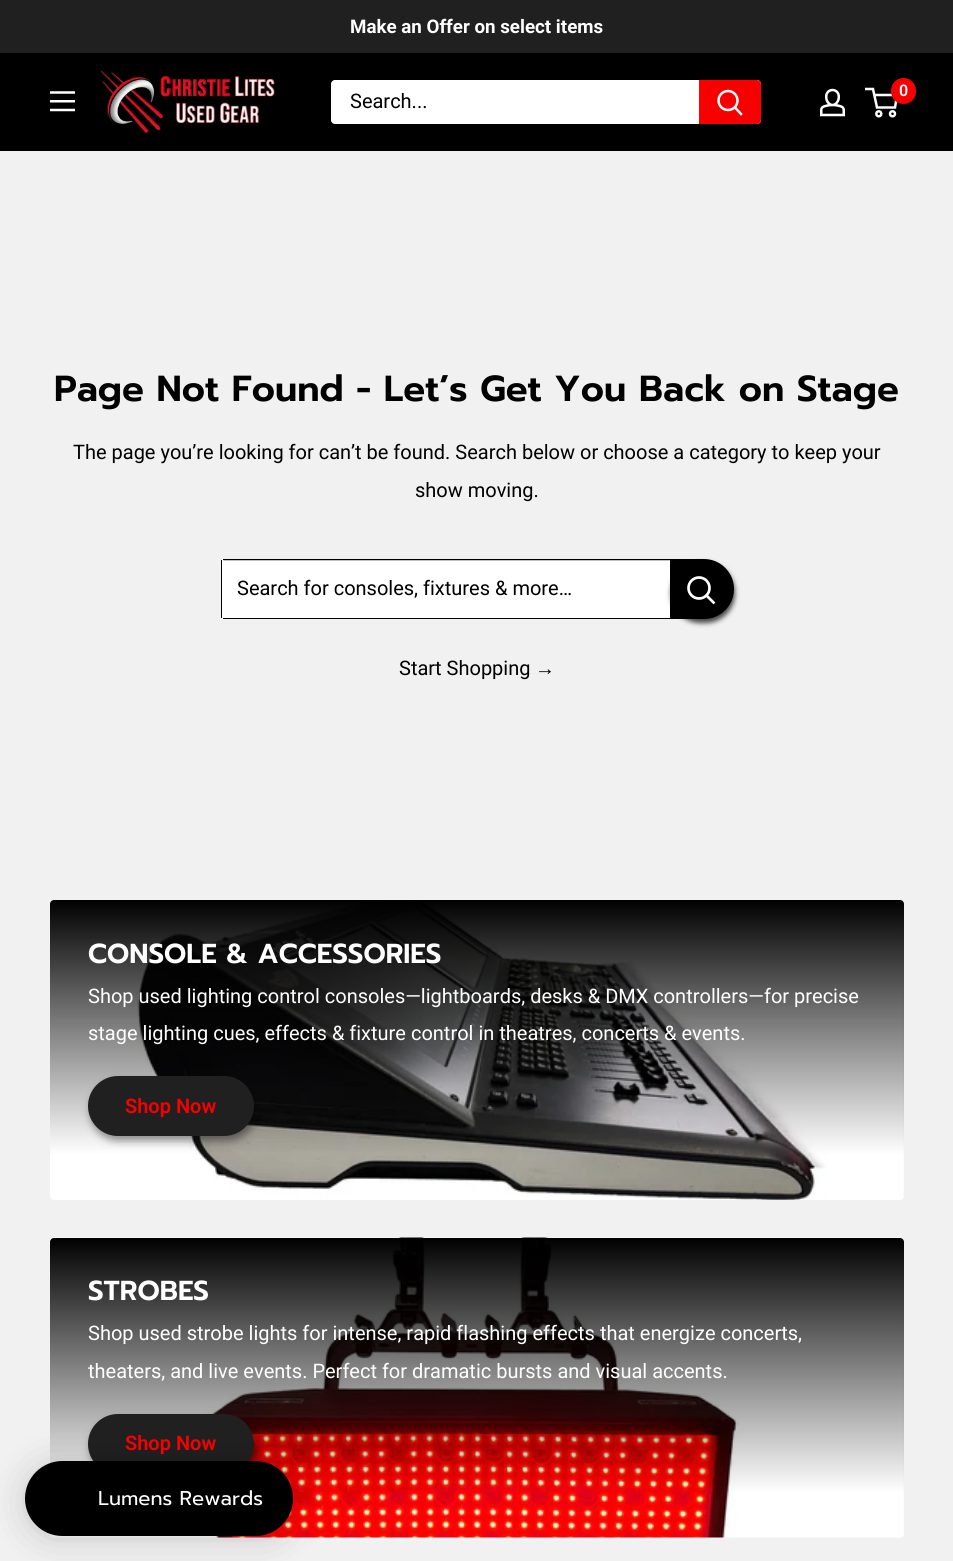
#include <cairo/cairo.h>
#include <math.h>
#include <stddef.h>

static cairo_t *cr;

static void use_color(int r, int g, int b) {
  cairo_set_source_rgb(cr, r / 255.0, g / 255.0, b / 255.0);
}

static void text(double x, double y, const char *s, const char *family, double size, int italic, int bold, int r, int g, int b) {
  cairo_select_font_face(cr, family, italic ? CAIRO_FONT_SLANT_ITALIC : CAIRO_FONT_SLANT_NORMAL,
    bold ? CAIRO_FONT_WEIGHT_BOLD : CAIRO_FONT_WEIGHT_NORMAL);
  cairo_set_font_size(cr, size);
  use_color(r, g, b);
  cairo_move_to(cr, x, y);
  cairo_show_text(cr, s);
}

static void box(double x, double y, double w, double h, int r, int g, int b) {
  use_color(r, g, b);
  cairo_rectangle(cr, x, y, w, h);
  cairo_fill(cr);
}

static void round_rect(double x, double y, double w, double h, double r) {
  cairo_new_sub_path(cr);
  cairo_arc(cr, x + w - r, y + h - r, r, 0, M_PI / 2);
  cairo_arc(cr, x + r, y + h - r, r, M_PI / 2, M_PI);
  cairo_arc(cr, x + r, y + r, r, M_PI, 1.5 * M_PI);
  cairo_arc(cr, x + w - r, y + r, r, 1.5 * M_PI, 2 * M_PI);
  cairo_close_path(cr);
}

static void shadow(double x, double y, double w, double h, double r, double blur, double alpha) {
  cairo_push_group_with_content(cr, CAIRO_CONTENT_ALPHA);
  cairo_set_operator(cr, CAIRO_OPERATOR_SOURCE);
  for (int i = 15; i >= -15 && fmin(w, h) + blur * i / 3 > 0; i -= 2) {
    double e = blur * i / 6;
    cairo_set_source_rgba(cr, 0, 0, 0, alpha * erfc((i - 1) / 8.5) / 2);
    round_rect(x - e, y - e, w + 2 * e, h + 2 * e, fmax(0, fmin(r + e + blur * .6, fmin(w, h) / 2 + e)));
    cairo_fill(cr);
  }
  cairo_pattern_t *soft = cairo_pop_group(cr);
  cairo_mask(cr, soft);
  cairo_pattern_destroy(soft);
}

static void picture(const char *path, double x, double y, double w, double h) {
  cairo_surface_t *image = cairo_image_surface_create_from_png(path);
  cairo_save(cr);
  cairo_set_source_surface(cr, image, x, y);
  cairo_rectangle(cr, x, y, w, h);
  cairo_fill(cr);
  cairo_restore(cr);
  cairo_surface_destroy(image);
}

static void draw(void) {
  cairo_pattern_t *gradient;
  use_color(241, 241, 241);
  cairo_paint(cr);
  box(0, 0, 953, 53, 32, 32, 32);
  box(0, 53, 953, 98, 0, 0, 0);
  picture("img_01.png", 50, 91, 25, 21);
  picture("img_02.png", 100, 70, 175, 64);
  use_color(255, 255, 255);
  round_rect(331, 80, 430, 44, 4);
  cairo_fill(cr);
  use_color(249, 0, 0);
  cairo_new_path(cr);
  cairo_move_to(cr, 699, 80);
  cairo_line_to(cr, 757, 80);
  cairo_curve_to(cr, 759, 80, 761, 82, 761, 84);
  cairo_line_to(cr, 761, 120);
  cairo_curve_to(cr, 761, 122, 759, 124, 757, 124);
  cairo_line_to(cr, 699, 124);
  cairo_close_path(cr);
  cairo_fill(cr);
  cairo_new_path(cr);
  cairo_move_to(cr, 741, 114);
  cairo_line_to(cr, 735, 107.5);
  use_color(255, 255, 255);
  cairo_set_line_width(cr, 2.5);
  cairo_set_line_cap(cr, CAIRO_LINE_CAP_SQUARE);
  cairo_stroke(cr);
  cairo_arc(cr, 728, 100.5, 9.5, 0, 2 * M_PI);
  cairo_set_line_cap(cr, CAIRO_LINE_CAP_BUTT);
  cairo_stroke(cr);
  picture("img_03.png", 820, 88, 25, 29);
  cairo_arc(cr, 878.8, 113.8, 2.5, 0, 2 * M_PI);
  cairo_stroke(cr);
  cairo_arc(cr, 892.5, 113.8, 2.5, 0, 2 * M_PI);
  cairo_stroke(cr);
  cairo_new_path(cr);
  cairo_move_to(cr, 874, 95);
  cairo_line_to(cr, 897, 95);
  cairo_line_to(cr, 895, 107.5);
  cairo_line_to(cr, 877, 107.5);
  cairo_line_to(cr, 873, 89);
  cairo_line_to(cr, 865, 89);
  cairo_stroke(cr);
  use_color(249, 0, 0);
  round_rect(891, 78, 25, 26, 12.5);
  cairo_fill(cr);
  use_color(255, 255, 255);
  cairo_new_path(cr);
  cairo_move_to(cr, 223.5, 559);
  cairo_line_to(cr, 670, 559);
  cairo_line_to(cr, 670, 619);
  cairo_line_to(cr, 223.5, 619);
  cairo_curve_to(cr, 222, 619, 221, 618, 221, 616.5);
  cairo_line_to(cr, 221, 561.5);
  cairo_curve_to(cr, 221, 560, 222, 559, 223.5, 559);
  cairo_close_path(cr);
  cairo_fill(cr);
  use_color(191, 191, 191);
  cairo_new_path(cr);
  cairo_move_to(cr, 224, 561);
  cairo_line_to(cr, 670, 561);
  cairo_line_to(cr, 670, 560);
  cairo_line_to(cr, 224, 560);
  cairo_line_to(cr, 223, 561);
  cairo_close_path(cr);
  cairo_fill(cr);
  box(223, 559, 447, 1, 0, 0, 0);
  box(223, 618, 447, 1, 0, 0, 0);
  box(221, 560, 1, 58, 0, 0, 0);
  use_color(0, 0, 0);
  shadow(671, 563, 64, 60, 30, 2.5, 0.71);
  use_color(0, 0, 0);
  cairo_new_path(cr);
  cairo_move_to(cr, 670, 559);
  cairo_line_to(cr, 704, 559);
  cairo_curve_to(cr, 720.5, 559, 734, 572.5, 734, 589);
  cairo_curve_to(cr, 734, 605.5, 720.5, 619, 704, 619);
  cairo_line_to(cr, 670, 619);
  cairo_close_path(cr);
  cairo_fill(cr);
  cairo_new_path(cr);
  cairo_move_to(cr, 713.5, 602.5);
  cairo_line_to(cr, 706.5, 595.5);
  use_color(255, 255, 255);
  cairo_set_line_width(cr, 2.7);
  cairo_set_line_cap(cr, CAIRO_LINE_CAP_SQUARE);
  cairo_stroke(cr);
  cairo_arc(cr, 699, 588, 10.5, 0, 2 * M_PI);
  cairo_set_line_cap(cr, CAIRO_LINE_CAP_BUTT);
  cairo_stroke(cr);
  picture("img_04.png", 50, 900, 854, 300);
  gradient = cairo_pattern_create_linear(477, 1200, 477, 900);
  cairo_pattern_add_color_stop_rgba(gradient, 0.15, 0, 0, 0, 0);
  cairo_pattern_add_color_stop_rgba(gradient, 1, 0, 0, 0, 1);
  cairo_set_source(cr, gradient);
  cairo_pattern_destroy(gradient);
  round_rect(50, 900, 854, 300, 4);
  cairo_fill(cr);
  use_color(0, 0, 0);
  shadow(90, 1081, 166, 60, 30, 4, 0.4);
  use_color(32, 32, 32);
  round_rect(88, 1076, 166, 60, 30);
  cairo_fill(cr);
  use_color(243, 244, 244);
  round_rect(50, 1238, 854, 300, 4);
  cairo_fill(cr);
  picture("img_05.png", 50, 1237, 854, 301);
  gradient = cairo_pattern_create_linear(477, 1538, 477, 1238);
  cairo_pattern_add_color_stop_rgba(gradient, 0.15, 0, 0, 0, 0);
  cairo_pattern_add_color_stop_rgba(gradient, 1, 0, 0, 0, 1);
  cairo_set_source(cr, gradient);
  cairo_pattern_destroy(gradient);
  round_rect(50, 1238, 854, 300, 4);
  cairo_fill(cr);
  use_color(0, 0, 0);
  shadow(90, 1419, 166, 60, 30, 4, 0.4);
  use_color(32, 32, 32);
  round_rect(88, 1414, 166, 60, 30);
  cairo_fill(cr);
  use_color(0, 0, 0);
  shadow(25, 1464, 268, 75, 37.5, 19, 0.15);
  shadow(25, 1463, 268, 75, 37.5, 4, 0.05);
  use_color(0, 0, 0);
  round_rect(25, 1461, 268, 75, 37.5);
  cairo_fill(cr);
  text(350, 33, "Make an Offer on select items", "Roboto", 18.75, 0, 1, 255, 255, 255);
  text(350, 108, "Search...", "Roboto", 20, 0, 0, 0, 0, 0);
  text(899, 96, "0", "Roboto SemiBold", 16, 0, 0, 255, 255, 255);
  text(54, 401, "Page Not Found - Let’s Get You Back on Stage", "Prompt SemiBold", 36.25, 0, 0, 0, 0, 0);
  text(73, 459, "The page you’re looking for can’t be found. Search below or choose a category to keep your", "Roboto", 20, 0, 0, 0, 0, 0);
  text(415, 497, "show moving.", "Roboto", 20, 0, 0, 0, 0, 0);
  text(237, 595, "Search for consoles, fixtures & more…", "Roboto", 20, 0, 0, 0, 0, 0);
  text(399, 675, "Start Shopping", "Roboto", 20, 0, 0, 0, 0, 0);
  text(535, 675, "→", "Liberation Sans", 20, 0, 0, 0, 0, 0);
  text(88, 963, "CONSOLE & ACCESSORIES", "Prompt SemiBold", 27.5, 0, 0, 255, 255, 255);
  text(88, 1003, "Shop used lighting control consoles—lightboards, desks & DMX controllers—for precise", "Roboto", 20, 0, 0, 255, 255, 255);
  text(88, 1040, "stage lighting cues, effects & fixture control in theatres, concerts & events.", "Roboto", 20, 0, 0, 255, 255, 255);
  text(125, 1113, "Shop Now", "Roboto SemiBold", 20, 0, 0, 249, 0, 0);
  text(88, 1300, "STROBES", "Prompt SemiBold", 27.5, 0, 0, 255, 255, 255);
  text(88, 1340, "Shop used strobe lights for intense, rapid flashing effects that energize concerts,", "Roboto", 20, 0, 0, 255, 255, 255);
  text(88, 1378, "theaters, and live events. Perfect for dramatic bursts and visual accents.", "Roboto", 20, 0, 0, 255, 255, 255);
  text(125, 1450, "Shop Now", "Roboto SemiBold", 20, 0, 0, 249, 0, 0);
  text(98, 1505, "Lumens Rewards", "Prompt", 20, 0, 0, 255, 255, 255);
}

int main(void) {
  cairo_surface_t *surface = cairo_image_surface_create(CAIRO_FORMAT_RGB24, 953, 1561);
  cr = cairo_create(surface);
  cairo_font_options_t *options = cairo_font_options_create();
  cairo_font_options_set_hint_metrics(options, CAIRO_HINT_METRICS_OFF);
  cairo_font_options_set_hint_style(options, CAIRO_HINT_STYLE_NONE);
  cairo_set_font_options(cr, options);
  cairo_set_miter_limit(cr, 4);
  draw();
  cairo_surface_write_to_png(surface, "out.png");
  cairo_font_options_destroy(options);
  cairo_destroy(cr);
  cairo_surface_destroy(surface);
  return 0;
}
